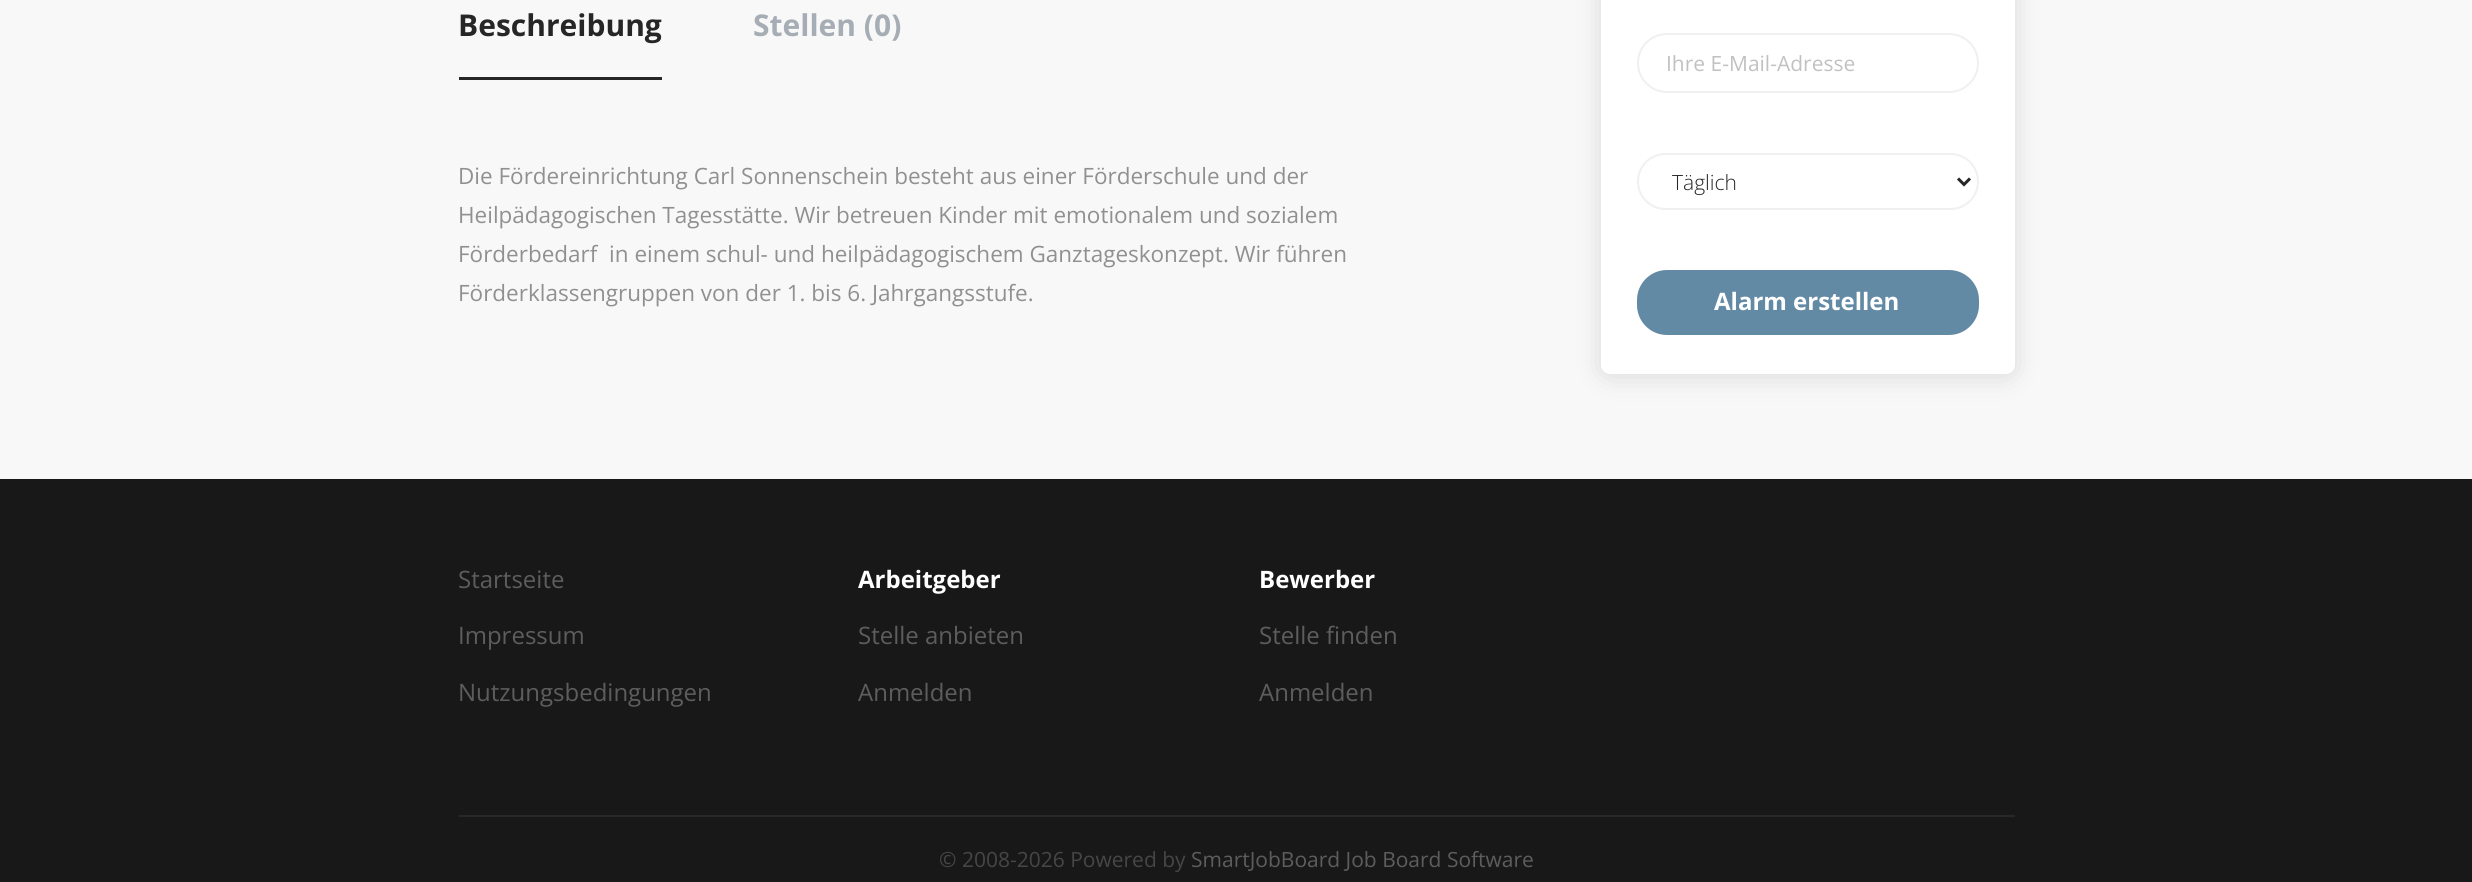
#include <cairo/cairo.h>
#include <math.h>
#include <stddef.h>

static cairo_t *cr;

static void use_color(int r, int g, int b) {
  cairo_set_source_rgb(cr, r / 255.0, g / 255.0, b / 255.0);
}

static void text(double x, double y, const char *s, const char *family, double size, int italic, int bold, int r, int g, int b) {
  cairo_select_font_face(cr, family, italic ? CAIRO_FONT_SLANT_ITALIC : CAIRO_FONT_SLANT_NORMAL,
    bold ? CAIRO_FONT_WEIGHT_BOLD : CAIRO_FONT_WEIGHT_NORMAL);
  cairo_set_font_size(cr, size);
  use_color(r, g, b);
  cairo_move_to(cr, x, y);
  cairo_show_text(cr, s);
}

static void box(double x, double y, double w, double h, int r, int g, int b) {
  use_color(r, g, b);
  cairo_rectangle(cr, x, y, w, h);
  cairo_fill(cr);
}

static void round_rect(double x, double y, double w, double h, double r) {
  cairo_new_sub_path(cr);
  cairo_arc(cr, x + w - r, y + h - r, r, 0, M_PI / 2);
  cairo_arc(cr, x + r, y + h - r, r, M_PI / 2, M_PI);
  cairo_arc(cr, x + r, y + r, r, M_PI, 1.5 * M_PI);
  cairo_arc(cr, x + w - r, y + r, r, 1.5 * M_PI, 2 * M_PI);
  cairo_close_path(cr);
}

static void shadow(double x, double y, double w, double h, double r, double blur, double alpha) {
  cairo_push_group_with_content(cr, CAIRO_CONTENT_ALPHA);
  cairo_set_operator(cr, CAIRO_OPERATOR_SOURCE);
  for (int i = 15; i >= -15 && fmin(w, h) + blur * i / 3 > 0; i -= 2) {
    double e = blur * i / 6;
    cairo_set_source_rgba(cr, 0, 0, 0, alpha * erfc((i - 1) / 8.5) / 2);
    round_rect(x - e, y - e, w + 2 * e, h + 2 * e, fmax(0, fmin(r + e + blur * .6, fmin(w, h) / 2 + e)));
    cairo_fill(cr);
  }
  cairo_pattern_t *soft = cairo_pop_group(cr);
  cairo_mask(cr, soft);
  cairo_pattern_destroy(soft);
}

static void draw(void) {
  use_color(248, 248, 248);
  cairo_paint(cr);
  box(459, 77, 203, 3, 38, 38, 38);
  use_color(0, 0, 0);
  shadow(1601, -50, 414, 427, 9, 13.5, 0.12);
  use_color(255, 255, 255);
  round_rect(1601, -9, 414, 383, 9);
  cairo_fill(cr);
  round_rect(1638, 34, 340, 58, 29);
  use_color(240, 240, 240);
  cairo_stroke(cr);
  round_rect(1638, 154, 340, 55, 27.5);
  cairo_stroke(cr);
  cairo_new_path(cr);
  cairo_move_to(cr, 1958, 178.5);
  cairo_line_to(cr, 1964, 184.5);
  cairo_line_to(cr, 1970, 178.5);
  use_color(39, 39, 39);
  cairo_set_line_width(cr, 3);
  cairo_stroke(cr);
  use_color(99, 138, 165);
  round_rect(1638, 271, 340, 63, 29);
  cairo_fill_preserve(cr);
  cairo_set_line_width(cr, 2);
  cairo_stroke(cr);
  box(0, 479, 2472, 403, 24, 24, 24);
  box(459, 815, 1556, 2, 40, 40, 40);
  text(458, 36, "Beschreibung", "Open Sans", 30, 0, 1, 38, 38, 38);
  text(753, 36, "Stellen (0)", "Open Sans", 30, 0, 1, 166, 173, 181);
  text(458, 184, "Die Fördereinrichtung Carl Sonnenschein besteht aus einer Förderschule und der", "Open Sans", 22.5, 0, 0, 144, 144, 144);
  text(458, 223, "Heilpädagogischen Tagesstätte. Wir betreuen Kinder mit emotionalem und sozialem", "Open Sans", 22.5, 0, 0, 144, 144, 144);
  text(458, 262, "Förderbedarf  in einem schul- und heilpädagogischem Ganztageskonzept. Wir führen", "Open Sans", 22.5, 0, 0, 144, 144, 144);
  text(458, 301, "Förderklassengruppen von der 1. bis 6. Jahrgangsstufe.", "Open Sans", 22.5, 0, 0, 144, 144, 144);
  text(1666, 71, "Ihre E-Mail-Adresse", "Open Sans", 21, 0, 0, 193, 193, 193);
  text(1672, 190, "Täglich", "Open Sans Light", 21, 0, 0, 38, 38, 38);
  text(1714, 310, "Alarm erstellen", "Open Sans", 24, 0, 1, 255, 255, 255);
  text(458, 588, "Startseite", "Open Sans", 24, 0, 0, 93, 93, 93);
  text(458, 644, "Impressum", "Open Sans", 24, 0, 0, 93, 93, 93);
  text(458, 701, "Nutzungsbedingungen", "Open Sans", 24, 0, 0, 93, 93, 93);
  text(858, 588, "Arbeitgeber", "Open Sans", 24, 0, 1, 255, 255, 255);
  text(858, 644, "Stelle anbieten", "Open Sans", 24, 0, 0, 93, 93, 93);
  text(858, 701, "Anmelden", "Open Sans", 24, 0, 0, 93, 93, 93);
  text(1259, 588, "Bewerber", "Open Sans", 24, 0, 1, 255, 255, 255);
  text(1259, 644, "Stelle finden", "Open Sans", 24, 0, 0, 93, 93, 93);
  text(1259, 701, "Anmelden", "Open Sans", 24, 0, 0, 93, 93, 93);
  text(939, 867, "© 2008-2026 Powered by", "Open Sans", 21, 0, 0, 70, 70, 70);
  text(1191, 867, "SmartJobBoard Job Board Software", "Open Sans", 21, 0, 0, 93, 93, 93);
}

int main(void) {
  cairo_surface_t *surface = cairo_image_surface_create(CAIRO_FORMAT_RGB24, 2472, 882);
  cr = cairo_create(surface);
  cairo_font_options_t *options = cairo_font_options_create();
  cairo_font_options_set_hint_metrics(options, CAIRO_HINT_METRICS_OFF);
  cairo_font_options_set_hint_style(options, CAIRO_HINT_STYLE_NONE);
  cairo_set_font_options(cr, options);
  cairo_set_miter_limit(cr, 4);
  draw();
  cairo_surface_write_to_png(surface, "out.png");
  cairo_font_options_destroy(options);
  cairo_destroy(cr);
  cairo_surface_destroy(surface);
  return 0;
}
